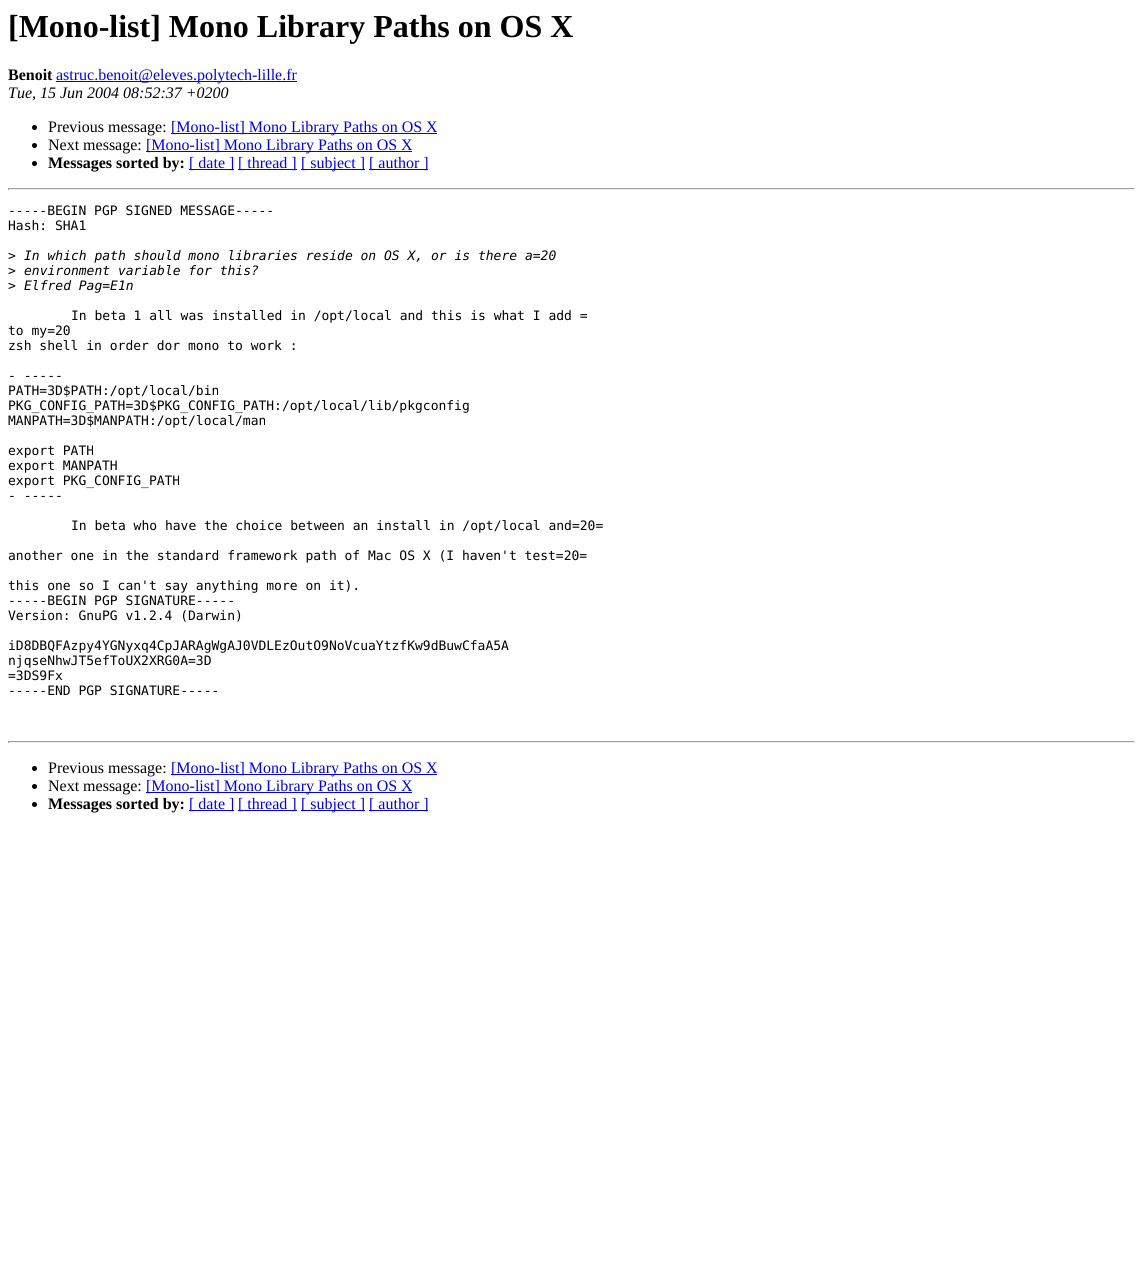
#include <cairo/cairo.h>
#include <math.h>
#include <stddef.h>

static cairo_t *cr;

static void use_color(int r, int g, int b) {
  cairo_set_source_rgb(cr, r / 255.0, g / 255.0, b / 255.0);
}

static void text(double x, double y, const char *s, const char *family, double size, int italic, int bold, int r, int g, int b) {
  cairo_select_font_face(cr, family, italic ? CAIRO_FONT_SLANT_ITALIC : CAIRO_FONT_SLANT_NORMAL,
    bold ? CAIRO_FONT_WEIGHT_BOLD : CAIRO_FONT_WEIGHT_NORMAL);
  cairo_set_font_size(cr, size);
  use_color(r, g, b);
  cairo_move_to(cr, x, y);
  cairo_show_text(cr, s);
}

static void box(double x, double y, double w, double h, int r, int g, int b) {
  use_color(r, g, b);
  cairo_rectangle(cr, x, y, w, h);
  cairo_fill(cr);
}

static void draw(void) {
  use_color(255, 255, 255);
  cairo_paint(cr);
  box(56, 81, 241, 1, 0, 0, 238);
  use_color(0, 0, 0);
  cairo_arc(cr, 34.5, 127.5, 2.5, 0, 2 * M_PI);
  cairo_fill(cr);
  box(171, 133, 266, 1, 0, 0, 238);
  use_color(0, 0, 0);
  cairo_arc(cr, 34.5, 145.5, 2.5, 0, 2 * M_PI);
  cairo_fill(cr);
  box(146, 151, 266, 1, 0, 0, 238);
  use_color(0, 0, 0);
  cairo_arc(cr, 34.5, 163.5, 2.5, 0, 2 * M_PI);
  cairo_fill(cr);
  box(189, 169, 45, 1, 0, 0, 238);
  box(238, 169, 59, 1, 0, 0, 238);
  box(301, 169, 64, 1, 0, 0, 238);
  box(369, 169, 59, 1, 0, 0, 238);
  box(8, 188, 1127, 1, 159, 159, 159);
  box(1134, 188, 1, 2, 238, 238, 238);
  box(8, 189, 1127, 1, 238, 238, 238);
  box(8, 188, 1, 2, 159, 159, 159);
  box(8, 741, 1127, 1, 159, 159, 159);
  box(1134, 741, 1, 2, 238, 238, 238);
  box(8, 742, 1127, 1, 238, 238, 238);
  box(8, 741, 1, 2, 159, 159, 159);
  use_color(0, 0, 0);
  cairo_arc(cr, 34.5, 768.5, 2.5, 0, 2 * M_PI);
  cairo_fill(cr);
  box(171, 774, 266, 1, 0, 0, 238);
  use_color(0, 0, 0);
  cairo_arc(cr, 34.5, 786.5, 2.5, 0, 2 * M_PI);
  cairo_fill(cr);
  box(146, 792, 266, 1, 0, 0, 238);
  use_color(0, 0, 0);
  cairo_arc(cr, 34.5, 804.5, 2.5, 0, 2 * M_PI);
  cairo_fill(cr);
  box(189, 810, 45, 1, 0, 0, 238);
  box(238, 810, 59, 1, 0, 0, 238);
  box(301, 810, 64, 1, 0, 0, 238);
  box(369, 810, 59, 1, 0, 0, 238);
  text(8, 37, "[Mono-list] Mono Library Paths on OS X", "Liberation Serif", 32, 0, 1, 0, 0, 0);
  text(8, 80, "Benoit", "Liberation Serif", 16, 0, 1, 0, 0, 0);
  text(56, 80, "astruc.benoit@eleves.polytech-lille.fr", "Liberation Serif", 16, 0, 0, 0, 0, 238);
  text(8, 98, "Tue, 15 Jun 2004 08:52:37 +0200", "Liberation Serif", 16, 1, 0, 0, 0, 0);
  text(48, 132, "Previous message:", "Liberation Serif", 16, 0, 0, 0, 0, 0);
  text(171, 132, "[Mono-list] Mono Library Paths on OS X", "Liberation Serif", 16, 0, 0, 0, 0, 238);
  text(48, 150, "Next message:", "Liberation Serif", 16, 0, 0, 0, 0, 0);
  text(146, 150, "[Mono-list] Mono Library Paths on OS X", "Liberation Serif", 16, 0, 0, 0, 0, 238);
  text(48, 168, "Messages sorted by:", "Liberation Serif", 16, 0, 1, 0, 0, 0);
  text(189, 168, "[ date ]", "Liberation Serif", 16, 0, 0, 0, 0, 238);
  text(238, 168, "[ thread ]", "Liberation Serif", 16, 0, 0, 0, 0, 238);
  text(301, 168, "[ subject ]", "Liberation Serif", 16, 0, 0, 0, 0, 238);
  text(369, 168, "[ author ]", "Liberation Serif", 16, 0, 0, 0, 0, 238);
  text(8, 215, "-----BEGIN PGP SIGNED MESSAGE-----", "DejaVu Sans Mono", 13, 0, 0, 0, 0, 0);
  text(8, 230, "Hash: SHA1", "DejaVu Sans Mono", 13, 0, 0, 0, 0, 0);
  text(8, 260, ">", "DejaVu Sans Mono", 13, 0, 0, 0, 0, 0);
  text(24, 260, "In which path should mono libraries reside on OS X, or is there a=20", "DejaVu Sans Mono", 13, 1, 0, 0, 0, 0);
  text(8, 275, ">", "DejaVu Sans Mono", 13, 0, 0, 0, 0, 0);
  text(24, 275, "environment variable for this?", "DejaVu Sans Mono", 13, 1, 0, 0, 0, 0);
  text(8, 290, ">", "DejaVu Sans Mono", 13, 0, 0, 0, 0, 0);
  text(24, 290, "Elfred Pag=E1n", "DejaVu Sans Mono", 13, 1, 0, 0, 0, 0);
  text(71, 320, "In beta 1 all was installed in /opt/local and this is what I add =", "DejaVu Sans Mono", 13, 0, 0, 0, 0, 0);
  text(8, 335, "to my=20", "DejaVu Sans Mono", 13, 0, 0, 0, 0, 0);
  text(8, 350, "zsh shell in order dor mono to work :", "DejaVu Sans Mono", 13, 0, 0, 0, 0, 0);
  text(8, 380, "- -----", "DejaVu Sans Mono", 13, 0, 0, 0, 0, 0);
  text(8, 395, "PATH=3D$PATH:/opt/local/bin", "DejaVu Sans Mono", 13, 0, 0, 0, 0, 0);
  text(8, 410, "PKG_CONFIG_PATH=3D$PKG_CONFIG_PATH:/opt/local/lib/pkgconfig", "DejaVu Sans Mono", 13, 0, 0, 0, 0, 0);
  text(8, 425, "MANPATH=3D$MANPATH:/opt/local/man", "DejaVu Sans Mono", 13, 0, 0, 0, 0, 0);
  text(8, 455, "export PATH", "DejaVu Sans Mono", 13, 0, 0, 0, 0, 0);
  text(8, 470, "export MANPATH", "DejaVu Sans Mono", 13, 0, 0, 0, 0, 0);
  text(8, 485, "export PKG_CONFIG_PATH", "DejaVu Sans Mono", 13, 0, 0, 0, 0, 0);
  text(8, 500, "- -----", "DejaVu Sans Mono", 13, 0, 0, 0, 0, 0);
  text(71, 530, "In beta who have the choice between an install in /opt/local and=20=", "DejaVu Sans Mono", 13, 0, 0, 0, 0, 0);
  text(8, 560, "another one in the standard framework path of Mac OS X (I haven't test=20=", "DejaVu Sans Mono", 13, 0, 0, 0, 0, 0);
  text(8, 590, "this one so I can't say anything more on it).", "DejaVu Sans Mono", 13, 0, 0, 0, 0, 0);
  text(8, 605, "-----BEGIN PGP SIGNATURE-----", "DejaVu Sans Mono", 13, 0, 0, 0, 0, 0);
  text(8, 620, "Version: GnuPG v1.2.4 (Darwin)", "DejaVu Sans Mono", 13, 0, 0, 0, 0, 0);
  text(8, 650, "iD8DBQFAzpy4YGNyxq4CpJARAgWgAJ0VDLEzOutO9NoVcuaYtzfKw9dBuwCfaA5A", "DejaVu Sans Mono", 13, 0, 0, 0, 0, 0);
  text(8, 665, "njqseNhwJT5efToUX2XRG0A=3D", "DejaVu Sans Mono", 13, 0, 0, 0, 0, 0);
  text(8, 680, "=3DS9Fx", "DejaVu Sans Mono", 13, 0, 0, 0, 0, 0);
  text(8, 695, "-----END PGP SIGNATURE-----", "DejaVu Sans Mono", 13, 0, 0, 0, 0, 0);
  text(48, 773, "Previous message:", "Liberation Serif", 16, 0, 0, 0, 0, 0);
  text(171, 773, "[Mono-list] Mono Library Paths on OS X", "Liberation Serif", 16, 0, 0, 0, 0, 238);
  text(48, 791, "Next message:", "Liberation Serif", 16, 0, 0, 0, 0, 0);
  text(146, 791, "[Mono-list] Mono Library Paths on OS X", "Liberation Serif", 16, 0, 0, 0, 0, 238);
  text(48, 809, "Messages sorted by:", "Liberation Serif", 16, 0, 1, 0, 0, 0);
  text(189, 809, "[ date ]", "Liberation Serif", 16, 0, 0, 0, 0, 238);
  text(238, 809, "[ thread ]", "Liberation Serif", 16, 0, 0, 0, 0, 238);
  text(301, 809, "[ subject ]", "Liberation Serif", 16, 0, 0, 0, 0, 238);
  text(369, 809, "[ author ]", "Liberation Serif", 16, 0, 0, 0, 0, 238);
}

int main(void) {
  cairo_surface_t *surface = cairo_image_surface_create(CAIRO_FORMAT_RGB24, 1143, 1262);
  cr = cairo_create(surface);
  cairo_font_options_t *options = cairo_font_options_create();
  cairo_font_options_set_hint_metrics(options, CAIRO_HINT_METRICS_OFF);
  cairo_font_options_set_hint_style(options, CAIRO_HINT_STYLE_NONE);
  cairo_set_font_options(cr, options);
  cairo_set_miter_limit(cr, 4);
  draw();
  cairo_surface_write_to_png(surface, "out.png");
  cairo_font_options_destroy(options);
  cairo_destroy(cr);
  cairo_surface_destroy(surface);
  return 0;
}
